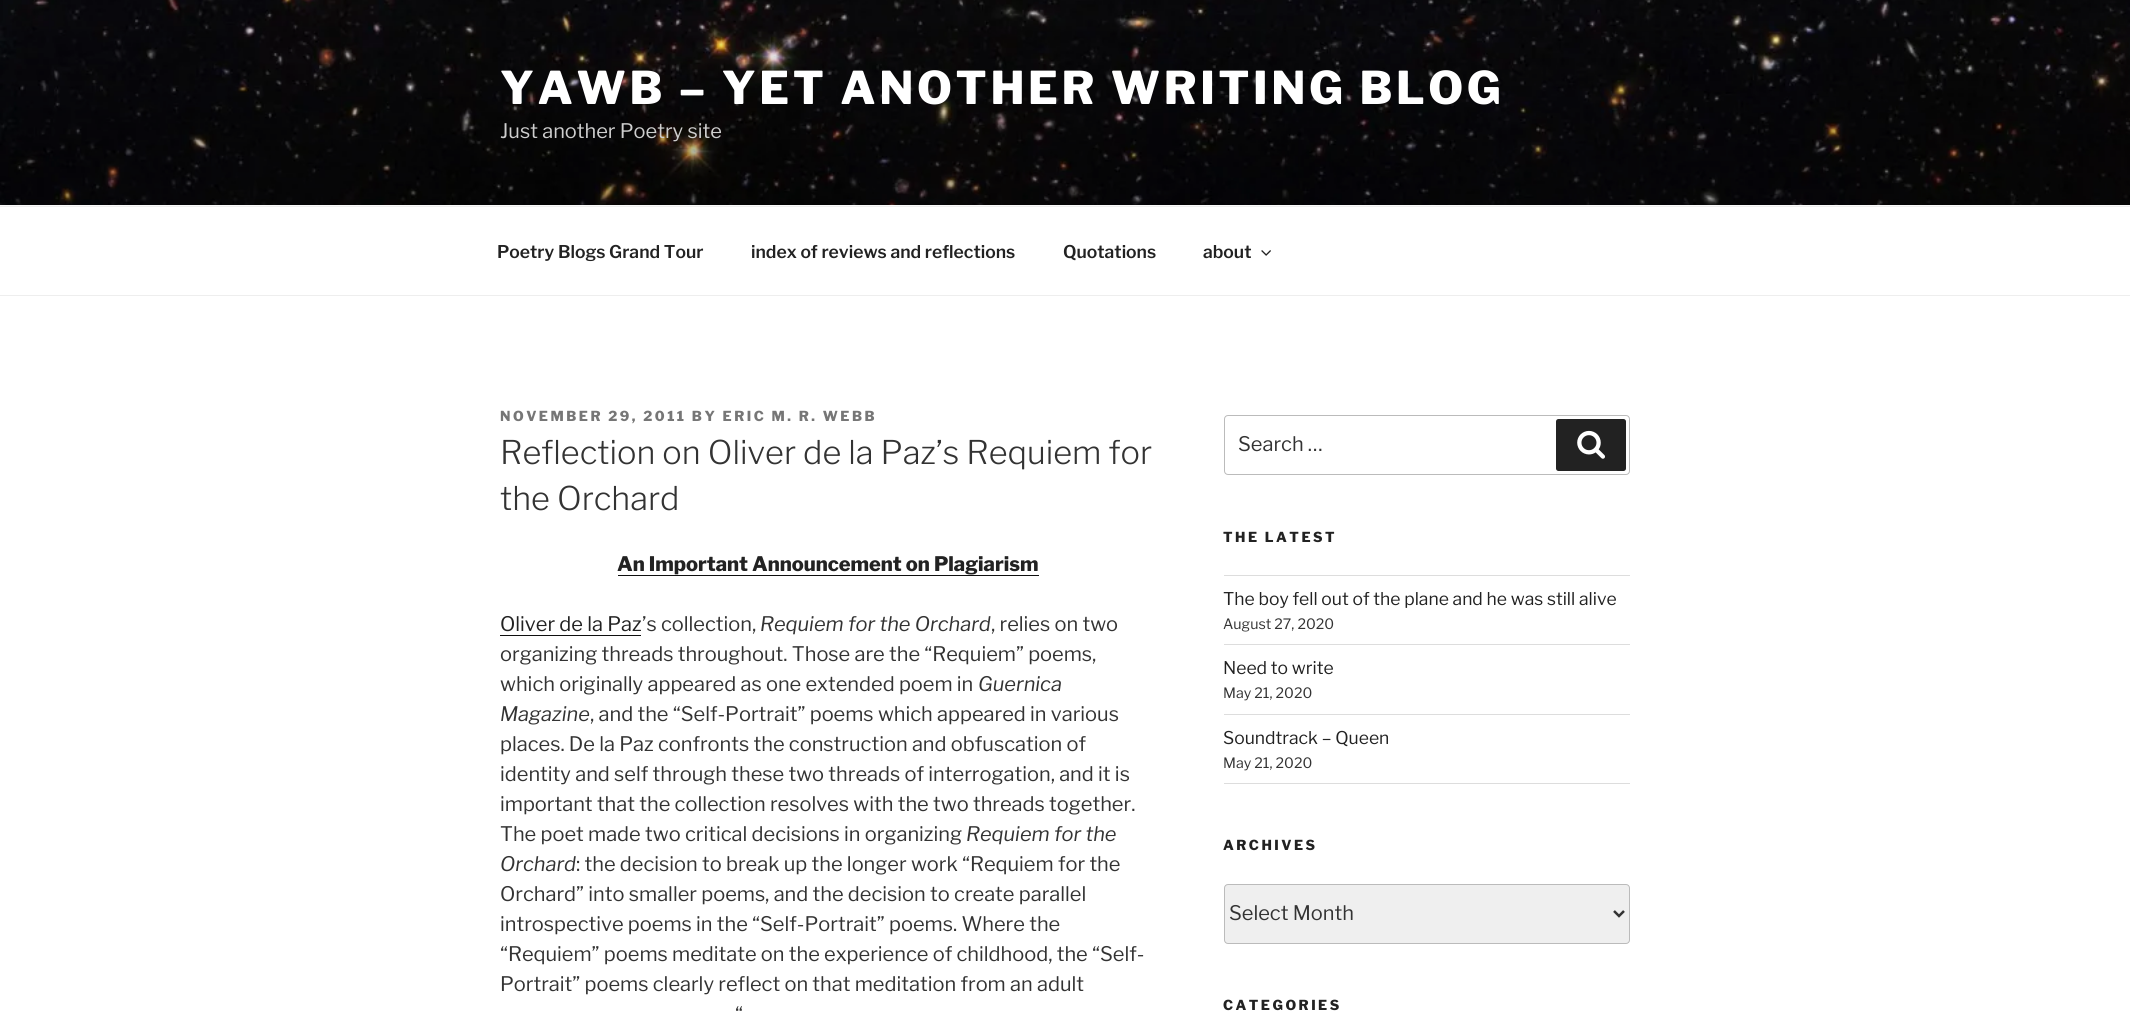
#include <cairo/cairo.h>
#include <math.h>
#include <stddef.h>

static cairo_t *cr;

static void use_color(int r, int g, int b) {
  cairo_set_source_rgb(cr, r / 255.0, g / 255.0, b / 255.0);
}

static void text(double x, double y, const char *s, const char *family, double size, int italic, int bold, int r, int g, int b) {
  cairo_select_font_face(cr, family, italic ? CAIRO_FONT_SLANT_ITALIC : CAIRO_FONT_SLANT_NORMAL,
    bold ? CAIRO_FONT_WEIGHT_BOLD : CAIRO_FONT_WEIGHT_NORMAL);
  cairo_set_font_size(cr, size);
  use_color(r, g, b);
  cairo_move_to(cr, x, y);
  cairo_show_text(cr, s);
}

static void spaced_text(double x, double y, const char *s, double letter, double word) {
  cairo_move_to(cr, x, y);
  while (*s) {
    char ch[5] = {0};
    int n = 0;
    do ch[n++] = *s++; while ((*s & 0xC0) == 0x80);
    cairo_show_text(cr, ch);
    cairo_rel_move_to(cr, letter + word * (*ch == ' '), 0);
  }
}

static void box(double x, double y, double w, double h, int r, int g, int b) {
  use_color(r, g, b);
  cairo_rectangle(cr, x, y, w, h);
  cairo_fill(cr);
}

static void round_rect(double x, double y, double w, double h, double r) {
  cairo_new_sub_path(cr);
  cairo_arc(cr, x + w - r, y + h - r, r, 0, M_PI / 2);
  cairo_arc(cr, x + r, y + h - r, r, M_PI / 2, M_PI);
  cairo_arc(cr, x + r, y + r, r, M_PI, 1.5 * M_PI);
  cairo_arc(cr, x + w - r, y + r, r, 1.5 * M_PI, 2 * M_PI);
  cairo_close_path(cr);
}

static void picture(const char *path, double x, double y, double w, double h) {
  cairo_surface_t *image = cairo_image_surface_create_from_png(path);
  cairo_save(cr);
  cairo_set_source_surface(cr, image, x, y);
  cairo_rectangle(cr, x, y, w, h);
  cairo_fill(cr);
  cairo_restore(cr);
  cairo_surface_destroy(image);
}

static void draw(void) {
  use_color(255, 255, 255);
  cairo_paint(cr);
  box(0, 205, 2130, 1, 250, 250, 250);
  picture("img_01.png", 0, 0, 2130, 205);
  box(0, 206, 2130, 1, 238, 238, 238);
  box(0, 295, 2130, 1, 238, 238, 238);
  picture("img_02.png", 1261, 250, 10, 6);
  box(618, 575, 421, 1, 15, 15, 15);
  box(500, 635, 141, 1, 15, 15, 15);
  round_rect(1224.5, 415.5, 405, 59, 3.5);
  use_color(187, 187, 187);
  cairo_set_line_width(cr, 1);
  cairo_stroke(cr);
  use_color(34, 34, 34);
  round_rect(1556, 419, 70, 52, 2.5);
  cairo_fill(cr);
  picture("img_03.png", 1577, 430, 28, 29);
  box(1224, 575, 406, 1, 221, 221, 221);
  box(1224, 644, 406, 1, 221, 221, 221);
  box(1224, 714, 406, 1, 221, 221, 221);
  box(1224, 783, 406, 1, 221, 221, 221);
  use_color(239, 239, 239);
  round_rect(1224.5, 884.5, 405, 59, 3.5);
  cairo_fill_preserve(cr);
  use_color(187, 187, 187);
  cairo_stroke(cr);
  cairo_new_path(cr);
  cairo_move_to(cr, 1614, 911);
  cairo_line_to(cr, 1619, 916);
  cairo_line_to(cr, 1624, 911);
  use_color(51, 51, 51);
  cairo_set_line_width(cr, 2.5);
  cairo_stroke(cr);
  cairo_select_font_face(cr, "Libre Franklin ExtraBold", CAIRO_FONT_SLANT_NORMAL, CAIRO_FONT_WEIGHT_NORMAL);
  cairo_set_font_size(cr, 45);
  use_color(255, 255, 255);
  spaced_text(500, 104, "YAWB – YET ANOTHER WRITING BLOG", 3.6, 0);
  text(500, 138, "Just another Poetry site", "Libre Franklin", 20, 0, 0, 206, 206, 206);
  text(497, 258, "Poetry Blogs Grand Tour", "Libre Franklin SemiBold", 17.5, 0, 0, 34, 34, 34);
  text(751, 258, "index of reviews and reflections", "Libre Franklin SemiBold", 17.5, 0, 0, 34, 34, 34);
  text(1063, 258, "Quotations", "Libre Franklin SemiBold", 17.5, 0, 0, 34, 34, 34);
  text(1203, 258, "about", "Libre Franklin SemiBold", 17.5, 0, 0, 34, 34, 34);
  cairo_select_font_face(cr, "Libre Franklin ExtraBold", CAIRO_FONT_SLANT_NORMAL, CAIRO_FONT_WEIGHT_NORMAL);
  cairo_set_font_size(cr, 13.75);
  use_color(118, 118, 118);
  spaced_text(500, 421, "NOVEMBER 29, 2011 BY ERIC M. R. WEBB", 2.5, 0);
  text(500, 464, "Reflection on Oliver de la Paz’s Requiem for", "Libre Franklin Light", 32.5, 0, 0, 51, 51, 51);
  text(500, 510, "the Orchard", "Libre Franklin Light", 32.5, 0, 0, 51, 51, 51);
  text(617, 571, "An Important Announcement on Plagiarism", "Libre Franklin ExtraBold", 20, 0, 0, 34, 34, 34);
  text(500, 631, "Oliver de la Paz", "Libre Franklin", 20, 0, 0, 34, 34, 34);
  text(642, 631, "’s collection,", "Libre Franklin", 20, 0, 0, 51, 51, 51);
  text(760, 631, "Requiem for the Orchard", "Libre Franklin", 20, 1, 0, 51, 51, 51);
  text(991, 631, ", relies on two", "Libre Franklin", 20, 0, 0, 51, 51, 51);
  text(500, 661, "organizing threads throughout. Those are the “Requiem” poems,", "Libre Franklin", 20, 0, 0, 51, 51, 51);
  text(500, 691, "which originally appeared as one extended poem in", "Libre Franklin", 20, 0, 0, 51, 51, 51);
  text(978, 691, "Guernica", "Libre Franklin", 20, 1, 0, 51, 51, 51);
  text(500, 721, "Magazine", "Libre Franklin", 20, 1, 0, 51, 51, 51);
  text(590, 721, ", and the “Self-Portrait” poems which appeared in various", "Libre Franklin", 20, 0, 0, 51, 51, 51);
  text(500, 751, "places. De la Paz confronts the construction and obfuscation of", "Libre Franklin", 20, 0, 0, 51, 51, 51);
  text(500, 781, "identity and self through these two threads of interrogation, and it is", "Libre Franklin", 20, 0, 0, 51, 51, 51);
  text(500, 811, "important that the collection resolves with the two threads together.", "Libre Franklin", 20, 0, 0, 51, 51, 51);
  text(500, 841, "The poet made two critical decisions in organizing", "Libre Franklin", 20, 0, 0, 51, 51, 51);
  text(966, 841, "Requiem for the", "Libre Franklin", 20, 1, 0, 51, 51, 51);
  text(500, 871, "Orchard", "Libre Franklin", 20, 1, 0, 51, 51, 51);
  text(576, 871, ": the decision to break up the longer work “Requiem for the", "Libre Franklin", 20, 0, 0, 51, 51, 51);
  text(500, 901, "Orchard” into smaller poems, and the decision to create parallel", "Libre Franklin", 20, 0, 0, 51, 51, 51);
  text(500, 931, "introspective poems in the “Self-Portrait” poems. Where the", "Libre Franklin", 20, 0, 0, 51, 51, 51);
  text(500, 961, "“Requiem” poems meditate on the experience of childhood, the “Self-", "Libre Franklin", 20, 0, 0, 51, 51, 51);
  text(500, 991, "Portrait” poems clearly reflect on that meditation from an adult", "Libre Franklin", 20, 0, 0, 51, 51, 51);
  text(735, 1021, "“", "Libre Franklin", 20, 0, 0, 51, 51, 51);
  text(1238, 451, "Search …", "Libre Franklin", 20, 0, 0, 51, 51, 51);
  cairo_select_font_face(cr, "Libre Franklin ExtraBold", CAIRO_FONT_SLANT_NORMAL, CAIRO_FONT_WEIGHT_NORMAL);
  cairo_set_font_size(cr, 13.75);
  use_color(34, 34, 34);
  spaced_text(1223, 542, "THE LATEST", 2.5, 0);
  text(1223, 605, "The boy fell out of the plane and he was still alive", "Libre Franklin", 17.5, 0, 0, 34, 34, 34);
  text(1223, 629, "August 27, 2020", "Libre Franklin", 14.25, 0, 0, 51, 51, 51);
  text(1223, 674, "Need to write", "Libre Franklin", 17.5, 0, 0, 34, 34, 34);
  text(1223, 698, "May 21, 2020", "Libre Franklin", 14.25, 0, 0, 51, 51, 51);
  text(1223, 744, "Soundtrack – Queen", "Libre Franklin", 17.5, 0, 0, 34, 34, 34);
  text(1223, 768, "May 21, 2020", "Libre Franklin", 14.25, 0, 0, 51, 51, 51);
  cairo_select_font_face(cr, "Libre Franklin ExtraBold", CAIRO_FONT_SLANT_NORMAL, CAIRO_FONT_WEIGHT_NORMAL);
  cairo_set_font_size(cr, 13.75);
  use_color(34, 34, 34);
  spaced_text(1223, 850, "ARCHIVES", 2.5, 0);
  text(1229, 920, "Select Month", "Libre Franklin", 20, 0, 0, 51, 51, 51);
  cairo_select_font_face(cr, "Libre Franklin ExtraBold", CAIRO_FONT_SLANT_NORMAL, CAIRO_FONT_WEIGHT_NORMAL);
  cairo_set_font_size(cr, 13.75);
  use_color(34, 34, 34);
  spaced_text(1223, 1010, "CATEGORIES", 2.5, 0);
}

int main(void) {
  cairo_surface_t *surface = cairo_image_surface_create(CAIRO_FORMAT_RGB24, 2130, 1013);
  cr = cairo_create(surface);
  cairo_font_options_t *options = cairo_font_options_create();
  cairo_font_options_set_hint_metrics(options, CAIRO_HINT_METRICS_OFF);
  cairo_font_options_set_hint_style(options, CAIRO_HINT_STYLE_NONE);
  cairo_set_font_options(cr, options);
  cairo_set_miter_limit(cr, 4);
  draw();
  cairo_surface_write_to_png(surface, "out.png");
  cairo_font_options_destroy(options);
  cairo_destroy(cr);
  cairo_surface_destroy(surface);
  return 0;
}
